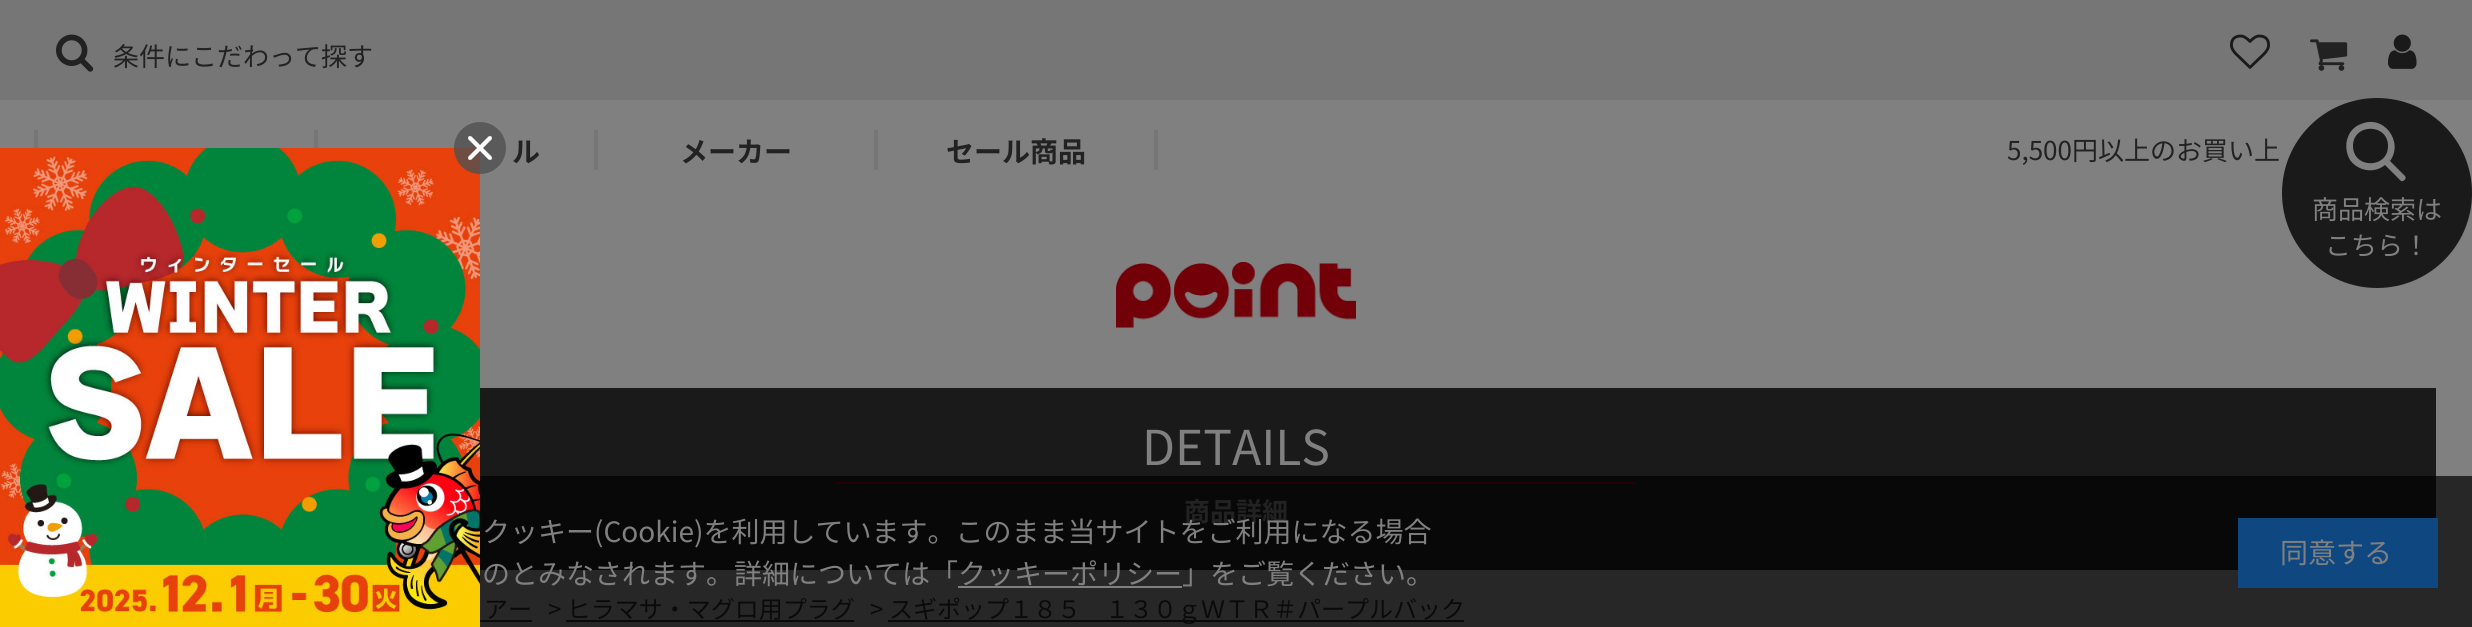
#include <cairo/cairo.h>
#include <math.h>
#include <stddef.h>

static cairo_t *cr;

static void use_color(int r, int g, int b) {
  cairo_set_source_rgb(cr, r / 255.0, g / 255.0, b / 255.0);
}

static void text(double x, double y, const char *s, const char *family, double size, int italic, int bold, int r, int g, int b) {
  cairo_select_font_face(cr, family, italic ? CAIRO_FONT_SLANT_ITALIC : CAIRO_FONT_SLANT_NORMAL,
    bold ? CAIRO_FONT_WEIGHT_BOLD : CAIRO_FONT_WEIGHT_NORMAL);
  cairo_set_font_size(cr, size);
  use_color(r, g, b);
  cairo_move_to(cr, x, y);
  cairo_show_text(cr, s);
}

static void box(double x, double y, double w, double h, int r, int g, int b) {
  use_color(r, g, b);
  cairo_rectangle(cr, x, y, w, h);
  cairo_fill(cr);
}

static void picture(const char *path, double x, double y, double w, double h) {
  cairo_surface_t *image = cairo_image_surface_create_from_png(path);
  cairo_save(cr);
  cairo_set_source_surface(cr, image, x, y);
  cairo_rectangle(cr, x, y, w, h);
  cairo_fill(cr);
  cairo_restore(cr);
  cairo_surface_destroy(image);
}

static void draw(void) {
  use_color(128, 128, 128);
  cairo_paint(cr);
  box(480, 476, 1992, 151, 39, 39, 39);
  box(0, 0, 2472, 100, 118, 118, 118);
  picture("img_01.png", 56, 34, 38, 38);
  picture("img_02.png", 2230, 34, 40, 35);
  picture("img_03.png", 2310, 39, 38, 32);
  picture("img_04.png", 2388, 34, 29, 35);
  box(34, 130, 4, 18, 118, 118, 118);
  box(314, 130, 4, 18, 118, 118, 118);
  box(594, 130, 4, 40, 118, 118, 118);
  box(874, 130, 4, 40, 118, 118, 118);
  box(1154, 130, 4, 40, 118, 118, 118);
  use_color(26, 26, 26);
  cairo_arc(cr, 2377, 193, 95, 0, 2 * M_PI);
  cairo_fill(cr);
  use_color(128, 128, 128);
  cairo_new_path(cr);
  cairo_move_to(cr, 2405, 176);
  cairo_line_to(cr, 2390, 161);
  cairo_curve_to(cr, 2404, 142, 2384, 114, 2361, 124);
  cairo_curve_to(cr, 2355, 126, 2350, 131, 2348, 137);
  cairo_curve_to(cr, 2345, 144, 2346, 153, 2350, 160);
  cairo_curve_to(cr, 2358, 171, 2374, 174, 2385, 165);
  cairo_line_to(cr, 2401, 181);
  cairo_curve_to(cr, 2404, 182, 2407, 178, 2405, 176);
  cairo_close_path(cr);
  cairo_move_to(cr, 2388, 146);
  cairo_curve_to(cr, 2388, 169, 2353, 169, 2353, 146);
  cairo_curve_to(cr, 2353, 123, 2388, 123, 2388, 146);
  cairo_close_path(cr);
  cairo_fill(cr);
  picture("img_05.png", 1116, 262, 240, 66);
  box(480, 388, 1956, 88, 26, 26, 26);
  box(480, 476, 1956, 94, 8, 8, 8);
  box(836, 482, 800, 2, 35, 0, 3);
  box(480, 620, 52, 2, 10, 10, 10);
  box(566, 620, 288, 2, 10, 10, 10);
  box(888, 620, 576, 2, 10, 10, 10);
  picture("img_06.png", 0, 148, 480, 479);
  cairo_set_source_rgba(cr, 0.314, 0.314, 0.314, 0.8);
  cairo_arc(cr, 480, 148, 26, 0, 2 * M_PI);
  cairo_fill(cr);
  use_color(255, 255, 255);
  cairo_new_path(cr);
  cairo_move_to(cr, 491.5, 136.5);
  cairo_curve_to(cr, 492, 137.5, 492, 138.5, 491.5, 139.5);
  cairo_line_to(cr, 471.5, 159.5);
  cairo_curve_to(cr, 470.5, 160, 469.5, 160, 468.5, 159.5);
  cairo_curve_to(cr, 468, 158.5, 468, 157.5, 468.5, 156.5);
  cairo_line_to(cr, 488.5, 136.5);
  cairo_curve_to(cr, 489.5, 136, 490.5, 136, 491.5, 136.5);
  cairo_close_path(cr);
  cairo_fill(cr);
  cairo_new_path(cr);
  cairo_move_to(cr, 468.5, 136.5);
  cairo_curve_to(cr, 469.5, 136, 470.5, 136, 471.5, 136.5);
  cairo_line_to(cr, 491.5, 156.5);
  cairo_curve_to(cr, 492, 157.5, 492, 158.5, 491.5, 159.5);
  cairo_curve_to(cr, 490.5, 160, 489.5, 160, 488.5, 159.5);
  cairo_line_to(cr, 468.5, 139.5);
  cairo_curve_to(cr, 468, 138.5, 468, 137.5, 468.5, 136.5);
  cairo_close_path(cr);
  cairo_fill(cr);
  box(958, 586, 224, 2, 128, 128, 128);
  box(2238, 518, 200, 70, 15, 72, 128);
  text(113, 66, "条件にこだわって探す", "Noto Sans JP", 26, 0, 0, 34, 34, 34);
  text(512, 162, "ル", "Noto Sans JP", 28, 0, 1, 34, 34, 34);
  text(680, 162, "メーカー", "Noto Sans JP", 28, 0, 1, 34, 34, 34);
  text(946, 162, "セール商品", "Noto Sans JP", 28, 0, 1, 34, 34, 34);
  text(2007, 160, "5,500円以上のお買い上", "Noto Sans JP", 26, 0, 0, 34, 34, 34);
  text(2312, 219, "商品検索は", "Noto Sans JP", 26, 0, 0, 128, 128, 128);
  text(2325, 255, "こちら！", "Noto Sans JP", 26, 0, 0, 128, 128, 128);
  text(1142, 465, "DETAILS", "Noto Sans JP", 48, 0, 0, 128, 128, 128);
  text(1184, 521, "商品詳細", "Noto Sans JP", 26, 0, 1, 34, 34, 34);
  text(484, 618, "アー", "Noto Sans JP", 24, 0, 0, 10, 10, 10);
  text(548, 618, "> ヒラマサ・マグロ用プラグ", "Noto Sans JP", 24, 0, 0, 10, 10, 10);
  text(870, 618, ">", "Noto Sans JP", 24, 0, 0, 10, 10, 10);
  text(889, 618, "スギポップ１８５　１３０ｇＷＴＲ＃パープルバック", "Noto Sans JP", 24, 0, 0, 10, 10, 10);
  text(482, 542, "クッキー(Cookie)を利用しています。このまま当サイトをご利用になる場合", "Noto Sans JP", 28, 0, 0, 128, 128, 128);
  text(482, 584, "のとみなされます。詳細については「", "Noto Sans JP", 28, 0, 0, 128, 128, 128);
  text(958, 584, "クッキーポリシー」をご覧ください。", "Noto Sans JP", 28, 0, 0, 128, 128, 128);
  text(2280, 563, "同意する", "Noto Sans JP", 28, 0, 0, 128, 128, 128);
}

int main(void) {
  cairo_surface_t *surface = cairo_image_surface_create(CAIRO_FORMAT_RGB24, 2472, 627);
  cr = cairo_create(surface);
  cairo_font_options_t *options = cairo_font_options_create();
  cairo_font_options_set_hint_metrics(options, CAIRO_HINT_METRICS_OFF);
  cairo_font_options_set_hint_style(options, CAIRO_HINT_STYLE_NONE);
  cairo_set_font_options(cr, options);
  cairo_set_miter_limit(cr, 4);
  draw();
  cairo_surface_write_to_png(surface, "out.png");
  cairo_font_options_destroy(options);
  cairo_destroy(cr);
  cairo_surface_destroy(surface);
  return 0;
}
